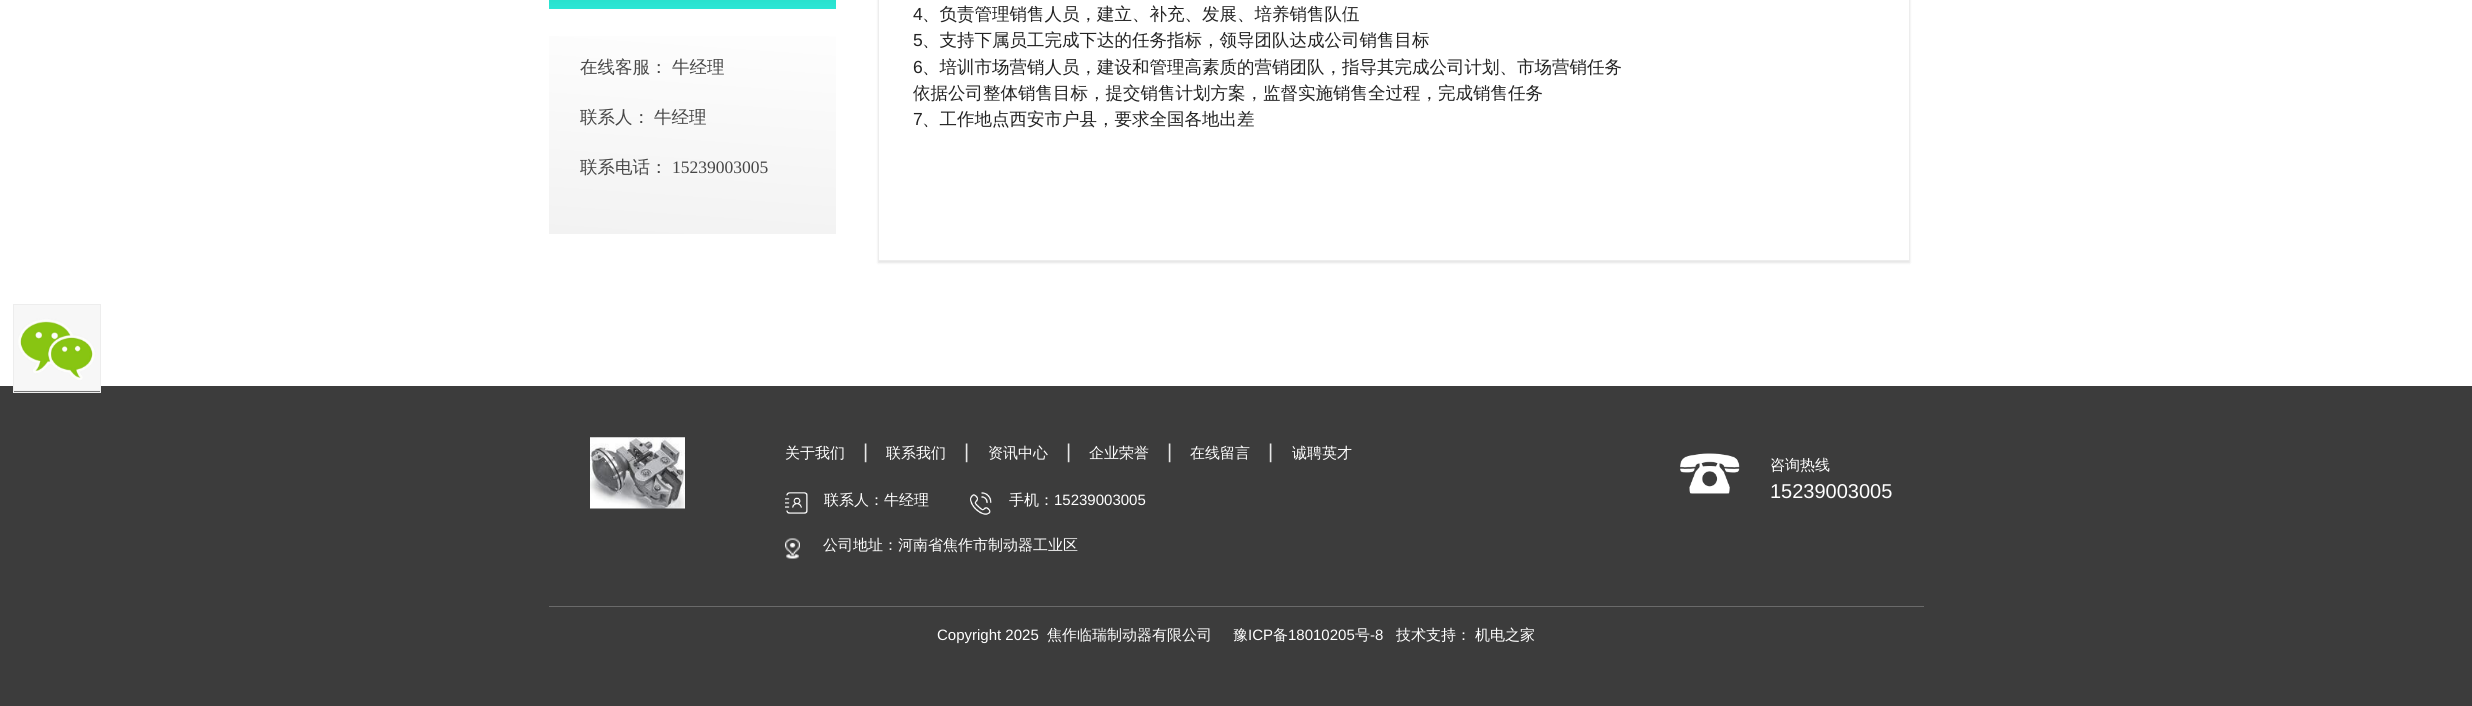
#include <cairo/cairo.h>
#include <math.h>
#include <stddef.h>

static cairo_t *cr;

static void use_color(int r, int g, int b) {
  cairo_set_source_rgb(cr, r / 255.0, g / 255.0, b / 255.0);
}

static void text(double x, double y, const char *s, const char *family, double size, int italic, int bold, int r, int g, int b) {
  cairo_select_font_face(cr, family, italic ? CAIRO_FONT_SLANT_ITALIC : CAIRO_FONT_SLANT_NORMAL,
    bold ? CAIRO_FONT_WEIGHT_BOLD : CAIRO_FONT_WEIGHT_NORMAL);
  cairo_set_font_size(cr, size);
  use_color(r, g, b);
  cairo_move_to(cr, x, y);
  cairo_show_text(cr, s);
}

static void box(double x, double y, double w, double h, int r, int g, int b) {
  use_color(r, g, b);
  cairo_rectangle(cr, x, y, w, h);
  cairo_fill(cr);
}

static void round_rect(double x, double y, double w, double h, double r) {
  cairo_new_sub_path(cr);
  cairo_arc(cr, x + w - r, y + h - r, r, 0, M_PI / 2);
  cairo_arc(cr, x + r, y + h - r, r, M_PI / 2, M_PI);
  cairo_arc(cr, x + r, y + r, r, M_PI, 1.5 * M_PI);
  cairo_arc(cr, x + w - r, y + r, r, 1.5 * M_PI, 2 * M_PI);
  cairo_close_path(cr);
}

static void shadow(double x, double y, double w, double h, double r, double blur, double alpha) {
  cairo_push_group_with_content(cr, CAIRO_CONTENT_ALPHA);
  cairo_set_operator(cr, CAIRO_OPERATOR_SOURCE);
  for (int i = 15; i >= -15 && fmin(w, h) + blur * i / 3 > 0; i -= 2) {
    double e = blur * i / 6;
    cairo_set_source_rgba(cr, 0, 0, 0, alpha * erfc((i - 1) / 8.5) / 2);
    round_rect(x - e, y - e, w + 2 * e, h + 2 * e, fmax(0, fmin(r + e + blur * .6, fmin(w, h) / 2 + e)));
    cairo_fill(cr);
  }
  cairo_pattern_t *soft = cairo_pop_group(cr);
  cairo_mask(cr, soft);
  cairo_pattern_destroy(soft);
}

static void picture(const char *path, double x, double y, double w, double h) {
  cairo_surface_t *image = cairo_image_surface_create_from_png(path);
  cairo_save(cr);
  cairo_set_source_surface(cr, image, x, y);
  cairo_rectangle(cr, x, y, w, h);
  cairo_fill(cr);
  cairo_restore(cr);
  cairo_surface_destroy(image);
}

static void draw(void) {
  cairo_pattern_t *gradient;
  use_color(255, 255, 255);
  cairo_paint(cr);
  gradient = cairo_pattern_create_linear(693, 9, 693, -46);
  cairo_pattern_add_color_stop_rgba(gradient, 0, 0.176, 0.902, 0.835, 1);
  cairo_pattern_add_color_stop_rgba(gradient, 1, 0.078, 0.788, 0.671, 1);
  cairo_set_source(cr, gradient);
  cairo_pattern_destroy(gradient);
  cairo_rectangle(cr, 549, 0, 287, 9);
  cairo_fill(cr);
  gradient = cairo_pattern_create_linear(701, -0.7, 684, 243);
  cairo_pattern_add_color_stop_rgba(gradient, 0, 1, 1, 1, 1);
  cairo_pattern_add_color_stop_rgba(gradient, 1, 0.949, 0.949, 0.949, 1);
  cairo_set_source(cr, gradient);
  cairo_pattern_destroy(gradient);
  cairo_rectangle(cr, 549, 36, 287, 198);
  cairo_fill(cr);
  cairo_save(cr);
  cairo_set_fill_rule(cr, CAIRO_FILL_RULE_EVEN_ODD);
  cairo_new_path(cr);
  cairo_move_to(cr, 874, 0);
  cairo_line_to(cr, 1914, 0);
  cairo_line_to(cr, 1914, 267);
  cairo_line_to(cr, 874, 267);
  cairo_close_path(cr);
  cairo_move_to(cr, 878, -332);
  cairo_line_to(cr, 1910, -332);
  cairo_line_to(cr, 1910, 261);
  cairo_line_to(cr, 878, 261);
  cairo_close_path(cr);
  cairo_clip(cr);
  use_color(0, 0, 0);
  shadow(878, -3, 1032, 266, 0, 1, 0.1);
  cairo_restore(cr);
  cairo_rectangle(cr, 878.5, -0.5, 1031, 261);
  use_color(237, 237, 237);
  cairo_set_line_width(cr, 1);
  cairo_stroke(cr);
  box(0, 386, 2472, 320, 60, 60, 60);
  cairo_rectangle(cr, 13.5, 304.5, 87, 88);
  use_color(237, 237, 237);
  cairo_stroke(cr);
  picture("img_01.png", 14, 305, 86, 87);
  picture("img_02.png", 590, 437, 95, 72);
  picture("img_03.png", 785, 492, 23, 22);
  picture("img_04.png", 970, 492, 22, 23);
  picture("img_05.png", 785, 538, 15, 21);
  picture("img_06.png", 1680, 453, 60, 41);
  box(549, 606, 1375, 1, 106, 106, 106);
  text(580, 73, "在线客服：", "WenQuanYi Zen Hei Medium", 17.5, 0, 0, 70, 70, 70);
  text(672, 73, "牛经理", "WenQuanYi Zen Hei Medium", 17.5, 0, 0, 70, 70, 70);
  text(580, 123, "联系人：", "WenQuanYi Zen Hei Medium", 17.5, 0, 0, 70, 70, 70);
  text(654, 123, "牛经理", "WenQuanYi Zen Hei Medium", 17.5, 0, 0, 70, 70, 70);
  text(580, 173, "联系电话：", "WenQuanYi Zen Hei Medium", 17.5, 0, 0, 70, 70, 70);
  text(672, 173, "15239003005", "Liberation Serif", 17.5, 0, 0, 70, 70, 70);
  text(913, 20, "4", "Liberation Sans", 17.5, 0, 0, 34, 34, 34);
  text(922, 20, "、负责管理销售人员，建立、补充、发展、培养销售队伍", "WenQuanYi Zen Hei Medium", 17.5, 0, 0, 34, 34, 34);
  text(913, 46, "5", "Liberation Sans", 17.5, 0, 0, 34, 34, 34);
  text(922, 46, "、支持下属员工完成下达的任务指标，领导团队达成公司销售目标", "WenQuanYi Zen Hei Medium", 17.5, 0, 0, 34, 34, 34);
  text(913, 73, "6", "Liberation Sans", 17.5, 0, 0, 34, 34, 34);
  text(922, 73, "、培训市场营销人员，建设和管理高素质的营销团队，指导其完成公司计划、市场营销任务", "WenQuanYi Zen Hei Medium", 17.5, 0, 0, 34, 34, 34);
  text(913, 99, "依据公司整体销售目标，提交销售计划方案，监督实施销售全过程，完成销售任务", "WenQuanYi Zen Hei Medium", 17.5, 0, 0, 34, 34, 34);
  text(913, 125, "7", "Liberation Sans", 17.5, 0, 0, 34, 34, 34);
  text(922, 125, "、工作地点西安市户县，要求全国各地出差", "WenQuanYi Zen Hei Medium", 17.5, 0, 0, 34, 34, 34);
  text(785, 458, "关于我们", "WenQuanYi Zen Hei Medium", 15, 0, 0, 255, 255, 255);
  text(863, 458, "|", "Liberation Sans", 20, 0, 0, 231, 231, 231);
  text(886, 458, "联系我们", "WenQuanYi Zen Hei Medium", 15, 0, 0, 255, 255, 255);
  text(964, 458, "|", "Liberation Sans", 20, 0, 0, 231, 231, 231);
  text(988, 458, "资讯中心", "WenQuanYi Zen Hei Medium", 15, 0, 0, 255, 255, 255);
  text(1066, 458, "|", "Liberation Sans", 20, 0, 0, 231, 231, 231);
  text(1089, 458, "企业荣誉", "WenQuanYi Zen Hei Medium", 15, 0, 0, 255, 255, 255);
  text(1167, 458, "|", "Liberation Sans", 20, 0, 0, 231, 231, 231);
  text(1190, 458, "在线留言", "WenQuanYi Zen Hei Medium", 15, 0, 0, 255, 255, 255);
  text(1268, 458, "|", "Liberation Sans", 20, 0, 0, 231, 231, 231);
  text(1292, 458, "诚聘英才", "WenQuanYi Zen Hei Medium", 15, 0, 0, 255, 255, 255);
  text(824, 505, "联系人：牛经理", "WenQuanYi Zen Hei Medium", 15, 0, 0, 255, 255, 255);
  text(1009, 505, "手机：", "WenQuanYi Zen Hei Medium", 15, 0, 0, 255, 255, 255);
  text(1054, 505, "15239003005", "Liberation Sans", 15, 0, 0, 255, 255, 255);
  text(823, 550, "公司地址：河南省焦作市制动器工业区", "WenQuanYi Zen Hei Medium", 15, 0, 0, 255, 255, 255);
  text(1770, 470, "咨询热线", "WenQuanYi Zen Hei Medium", 15, 0, 0, 255, 255, 255);
  text(1770, 498, "15239003005", "Liberation Sans", 20, 0, 0, 255, 255, 255);
  text(937, 640, "Copyright 2025", "Liberation Sans", 15, 0, 0, 255, 255, 255);
  text(1047, 640, "焦作临瑞制动器有限公司", "WenQuanYi Zen Hei Medium", 15, 0, 0, 255, 255, 255);
  text(1233, 640, "豫", "WenQuanYi Zen Hei Medium", 15, 0, 0, 255, 255, 255);
  text(1248, 640, "ICP", "Liberation Sans", 15, 0, 0, 255, 255, 255);
  text(1273, 640, "备", "WenQuanYi Zen Hei Medium", 15, 0, 0, 255, 255, 255);
  text(1288, 640, "18010205", "Liberation Sans", 15, 0, 0, 255, 255, 255);
  text(1355, 640, "号", "WenQuanYi Zen Hei Medium", 15, 0, 0, 255, 255, 255);
  text(1370, 640, "-8", "Liberation Sans", 15, 0, 0, 255, 255, 255);
  text(1396, 640, "技术支持：", "WenQuanYi Zen Hei Medium", 15, 0, 0, 255, 255, 255);
  text(1475, 640, "机电之家", "WenQuanYi Zen Hei Medium", 15, 0, 0, 255, 255, 255);
}

int main(void) {
  cairo_surface_t *surface = cairo_image_surface_create(CAIRO_FORMAT_RGB24, 2472, 706);
  cr = cairo_create(surface);
  cairo_font_options_t *options = cairo_font_options_create();
  cairo_font_options_set_hint_metrics(options, CAIRO_HINT_METRICS_OFF);
  cairo_font_options_set_hint_style(options, CAIRO_HINT_STYLE_NONE);
  cairo_set_font_options(cr, options);
  cairo_set_miter_limit(cr, 4);
  draw();
  cairo_surface_write_to_png(surface, "out.png");
  cairo_font_options_destroy(options);
  cairo_destroy(cr);
  cairo_surface_destroy(surface);
  return 0;
}
